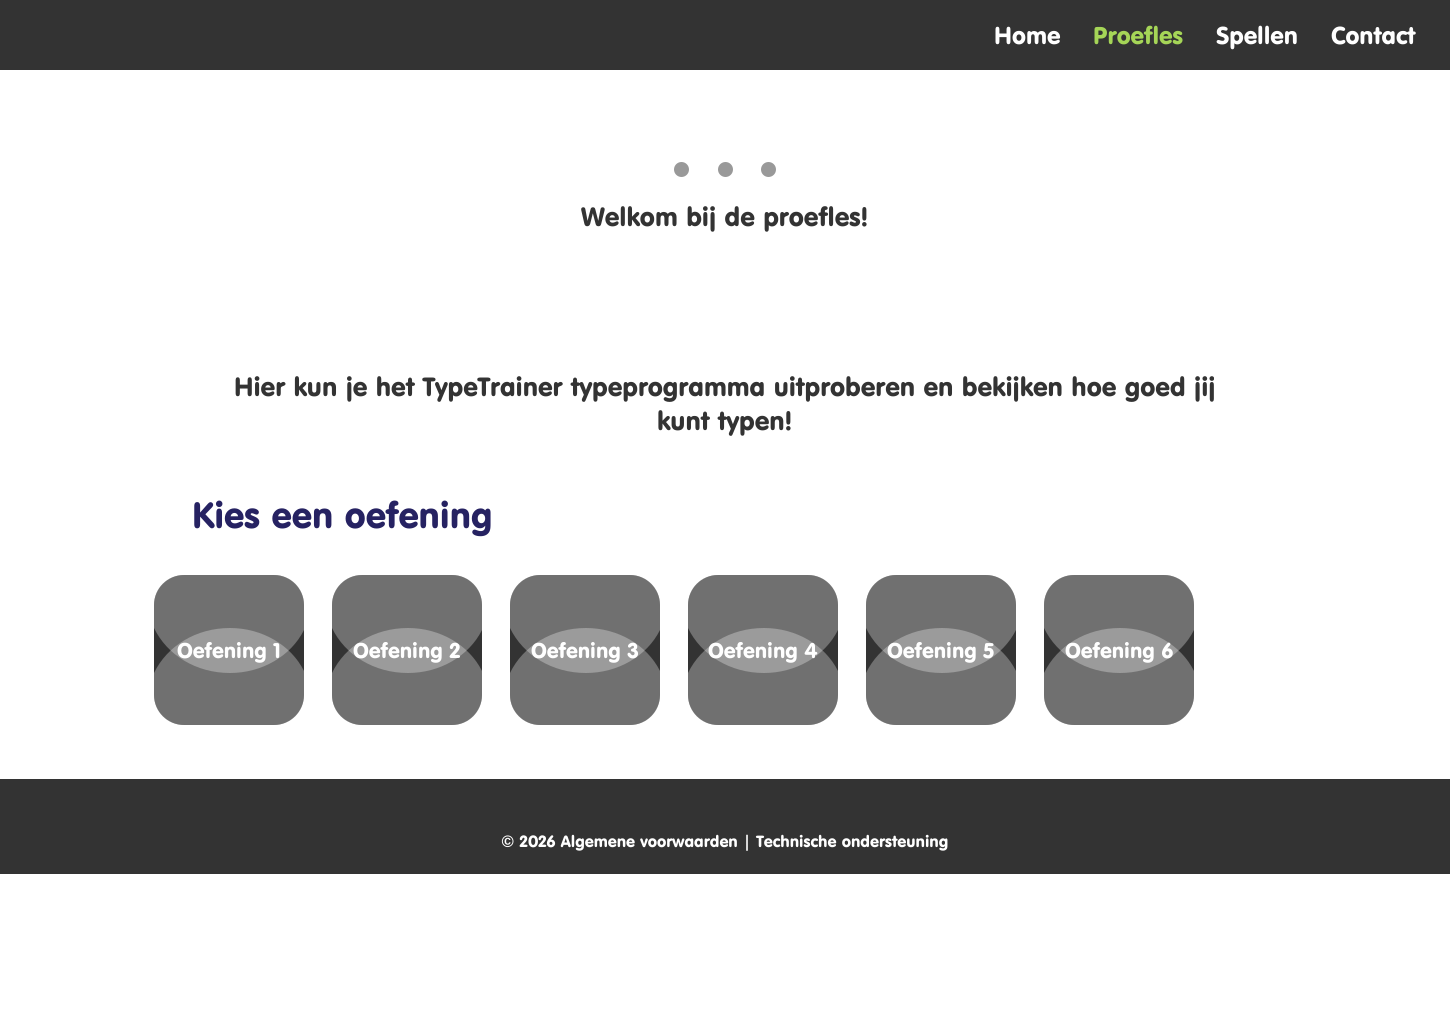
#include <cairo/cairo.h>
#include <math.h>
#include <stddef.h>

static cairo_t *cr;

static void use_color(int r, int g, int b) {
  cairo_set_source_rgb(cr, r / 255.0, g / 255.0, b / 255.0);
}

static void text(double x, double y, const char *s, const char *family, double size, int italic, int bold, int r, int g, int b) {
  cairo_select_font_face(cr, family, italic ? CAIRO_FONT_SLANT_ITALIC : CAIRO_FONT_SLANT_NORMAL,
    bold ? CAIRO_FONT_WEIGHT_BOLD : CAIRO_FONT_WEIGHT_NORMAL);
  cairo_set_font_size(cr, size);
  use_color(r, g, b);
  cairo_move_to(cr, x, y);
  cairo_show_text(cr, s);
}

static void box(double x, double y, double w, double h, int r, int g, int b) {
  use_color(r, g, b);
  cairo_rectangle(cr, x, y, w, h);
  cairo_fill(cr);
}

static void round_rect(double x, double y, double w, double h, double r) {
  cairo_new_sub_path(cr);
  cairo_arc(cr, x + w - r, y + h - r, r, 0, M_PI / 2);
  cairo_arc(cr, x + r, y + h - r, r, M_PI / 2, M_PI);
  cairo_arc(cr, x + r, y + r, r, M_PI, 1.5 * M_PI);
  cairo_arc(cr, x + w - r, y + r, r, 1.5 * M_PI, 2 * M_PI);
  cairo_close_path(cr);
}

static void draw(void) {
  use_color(255, 255, 255);
  cairo_paint(cr);
  box(0, 0, 1450, 70, 51, 51, 51);
  use_color(153, 153, 153);
  cairo_arc(cr, 681.5, 169.5, 7.5, 0, 2 * M_PI);
  cairo_fill(cr);
  cairo_arc(cr, 725.5, 169.5, 7.5, 0, 2 * M_PI);
  cairo_fill(cr);
  cairo_arc(cr, 768.5, 169.5, 7.5, 0, 2 * M_PI);
  cairo_fill(cr);
  use_color(51, 51, 51);
  round_rect(154, 575, 150, 150, 30);
  cairo_fill(cr);
  round_rect(332, 575, 150, 150, 30);
  cairo_fill(cr);
  round_rect(510, 575, 150, 150, 30);
  cairo_fill(cr);
  round_rect(688, 575, 150, 150, 30);
  cairo_fill(cr);
  round_rect(866, 575, 150, 150, 30);
  cairo_fill(cr);
  round_rect(1044, 575, 150, 150, 30);
  cairo_fill(cr);
  box(0, 779, 1450, 95, 51, 51, 51);
  text(994, 44, "Home", "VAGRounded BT", 24, 0, 0, 255, 255, 255);
  text(1093, 44, "Proefles", "VAGRounded BT", 24, 0, 0, 165, 213, 87);
  text(1216, 44, "Spellen", "VAGRounded BT", 24, 0, 0, 255, 255, 255);
  text(1331, 44, "Contact", "VAGRounded BT", 24, 0, 0, 255, 255, 255);
  text(581, 226, "Welkom bij de proefles!", "VAGRounded BT", 26, 0, 0, 51, 51, 51);
  text(234, 396, "Hier kun je het TypeTrainer typeprogramma uitproberen en bekijken hoe goed jij", "VAGRounded BT", 26, 0, 0, 51, 51, 51);
  text(657, 430, "kunt typen!", "VAGRounded BT", 26, 0, 0, 51, 51, 51);
  text(192, 528, "Kies een oefening", "VAGRounded BT", 36, 0, 0, 38, 34, 98);
  text(177, 658, "Oefening 1", "VAGRounded BT", 21, 0, 0, 255, 255, 255);
  cairo_set_source_rgba(cr, 1, 1, 1, 0.3);
  cairo_new_path(cr);
  cairo_move_to(cr, 230, 628);
  cairo_curve_to(cr, 262, 628, 291, 645, 304, 671);
  cairo_line_to(cr, 304, 695);
  cairo_curve_to(cr, 304, 712, 291, 725, 274, 725);
  cairo_line_to(cr, 184, 725);
  cairo_curve_to(cr, 167, 725, 154, 712, 154, 695);
  cairo_line_to(cr, 154, 673);
  cairo_curve_to(cr, 167, 646, 196, 628, 230, 628);
  cairo_close_path(cr);
  cairo_fill(cr);
  cairo_new_path(cr);
  cairo_move_to(cr, 184, 575);
  cairo_line_to(cr, 274, 575);
  cairo_curve_to(cr, 291, 575, 304, 588, 304, 605);
  cairo_line_to(cr, 304, 630);
  cairo_curve_to(cr, 291, 656, 262, 673, 230, 673);
  cairo_curve_to(cr, 196, 673, 167, 655, 154, 628);
  cairo_line_to(cr, 154, 605);
  cairo_curve_to(cr, 154, 588, 167, 575, 184, 575);
  cairo_close_path(cr);
  cairo_fill(cr);
  text(353, 658, "Oefening 2", "VAGRounded BT", 21, 0, 0, 255, 255, 255);
  cairo_set_source_rgba(cr, 1, 1, 1, 0.3);
  cairo_new_path(cr);
  cairo_move_to(cr, 408, 628);
  cairo_curve_to(cr, 440, 628, 469, 645, 482, 671);
  cairo_line_to(cr, 482, 695);
  cairo_curve_to(cr, 482, 712, 469, 725, 452, 725);
  cairo_line_to(cr, 362, 725);
  cairo_curve_to(cr, 345, 725, 332, 712, 332, 695);
  cairo_line_to(cr, 332, 673);
  cairo_curve_to(cr, 345, 646, 374, 628, 408, 628);
  cairo_close_path(cr);
  cairo_fill(cr);
  cairo_new_path(cr);
  cairo_move_to(cr, 362, 575);
  cairo_line_to(cr, 452, 575);
  cairo_curve_to(cr, 469, 575, 482, 588, 482, 605);
  cairo_line_to(cr, 482, 630);
  cairo_curve_to(cr, 469, 656, 440, 673, 408, 673);
  cairo_curve_to(cr, 374, 673, 345, 655, 332, 628);
  cairo_line_to(cr, 332, 605);
  cairo_curve_to(cr, 332, 588, 345, 575, 362, 575);
  cairo_close_path(cr);
  cairo_fill(cr);
  text(531, 658, "Oefening 3", "VAGRounded BT", 21, 0, 0, 255, 255, 255);
  cairo_set_source_rgba(cr, 1, 1, 1, 0.3);
  cairo_new_path(cr);
  cairo_move_to(cr, 586, 628);
  cairo_curve_to(cr, 618, 628, 647, 645, 660, 671);
  cairo_line_to(cr, 660, 695);
  cairo_curve_to(cr, 660, 712, 647, 725, 630, 725);
  cairo_line_to(cr, 540, 725);
  cairo_curve_to(cr, 523, 725, 510, 712, 510, 695);
  cairo_line_to(cr, 510, 673);
  cairo_curve_to(cr, 523, 646, 552, 628, 586, 628);
  cairo_close_path(cr);
  cairo_fill(cr);
  cairo_new_path(cr);
  cairo_move_to(cr, 540, 575);
  cairo_line_to(cr, 630, 575);
  cairo_curve_to(cr, 647, 575, 660, 588, 660, 605);
  cairo_line_to(cr, 660, 630);
  cairo_curve_to(cr, 647, 656, 618, 673, 586, 673);
  cairo_curve_to(cr, 552, 673, 523, 655, 510, 628);
  cairo_line_to(cr, 510, 605);
  cairo_curve_to(cr, 510, 588, 523, 575, 540, 575);
  cairo_close_path(cr);
  cairo_fill(cr);
  text(708, 658, "Oefening 4", "VAGRounded BT", 21, 0, 0, 255, 255, 255);
  cairo_set_source_rgba(cr, 1, 1, 1, 0.3);
  cairo_new_path(cr);
  cairo_move_to(cr, 764, 628);
  cairo_curve_to(cr, 796, 628, 825, 645, 838, 671);
  cairo_line_to(cr, 838, 695);
  cairo_curve_to(cr, 838, 712, 825, 725, 808, 725);
  cairo_line_to(cr, 718, 725);
  cairo_curve_to(cr, 701, 725, 688, 712, 688, 695);
  cairo_line_to(cr, 688, 673);
  cairo_curve_to(cr, 701, 646, 730, 628, 764, 628);
  cairo_close_path(cr);
  cairo_fill(cr);
  cairo_new_path(cr);
  cairo_move_to(cr, 718, 575);
  cairo_line_to(cr, 808, 575);
  cairo_curve_to(cr, 825, 575, 838, 588, 838, 605);
  cairo_line_to(cr, 838, 630);
  cairo_curve_to(cr, 825, 656, 796, 673, 764, 673);
  cairo_curve_to(cr, 730, 673, 701, 655, 688, 628);
  cairo_line_to(cr, 688, 605);
  cairo_curve_to(cr, 688, 588, 701, 575, 718, 575);
  cairo_close_path(cr);
  cairo_fill(cr);
  text(887, 658, "Oefening 5", "VAGRounded BT", 21, 0, 0, 255, 255, 255);
  cairo_set_source_rgba(cr, 1, 1, 1, 0.3);
  cairo_new_path(cr);
  cairo_move_to(cr, 942, 628);
  cairo_curve_to(cr, 974, 628, 1003, 645, 1016, 671);
  cairo_line_to(cr, 1016, 695);
  cairo_curve_to(cr, 1016, 712, 1003, 725, 986, 725);
  cairo_line_to(cr, 896, 725);
  cairo_curve_to(cr, 879, 725, 866, 712, 866, 695);
  cairo_line_to(cr, 866, 673);
  cairo_curve_to(cr, 879, 646, 908, 628, 942, 628);
  cairo_close_path(cr);
  cairo_fill(cr);
  cairo_new_path(cr);
  cairo_move_to(cr, 896, 575);
  cairo_line_to(cr, 986, 575);
  cairo_curve_to(cr, 1003, 575, 1016, 588, 1016, 605);
  cairo_line_to(cr, 1016, 630);
  cairo_curve_to(cr, 1003, 656, 974, 673, 942, 673);
  cairo_curve_to(cr, 908, 673, 879, 655, 866, 628);
  cairo_line_to(cr, 866, 605);
  cairo_curve_to(cr, 866, 588, 879, 575, 896, 575);
  cairo_close_path(cr);
  cairo_fill(cr);
  text(1065, 658, "Oefening 6", "VAGRounded BT", 21, 0, 0, 255, 255, 255);
  cairo_set_source_rgba(cr, 1, 1, 1, 0.3);
  cairo_new_path(cr);
  cairo_move_to(cr, 1120, 628);
  cairo_curve_to(cr, 1152, 628, 1181, 645, 1194, 671);
  cairo_line_to(cr, 1194, 695);
  cairo_curve_to(cr, 1194, 712, 1181, 725, 1164, 725);
  cairo_line_to(cr, 1074, 725);
  cairo_curve_to(cr, 1057, 725, 1044, 712, 1044, 695);
  cairo_line_to(cr, 1044, 673);
  cairo_curve_to(cr, 1057, 646, 1086, 628, 1120, 628);
  cairo_close_path(cr);
  cairo_fill(cr);
  cairo_new_path(cr);
  cairo_move_to(cr, 1074, 575);
  cairo_line_to(cr, 1164, 575);
  cairo_curve_to(cr, 1181, 575, 1194, 588, 1194, 605);
  cairo_line_to(cr, 1194, 630);
  cairo_curve_to(cr, 1181, 656, 1152, 673, 1120, 673);
  cairo_curve_to(cr, 1086, 673, 1057, 655, 1044, 628);
  cairo_line_to(cr, 1044, 605);
  cairo_curve_to(cr, 1044, 588, 1057, 575, 1074, 575);
  cairo_close_path(cr);
  cairo_fill(cr);
  text(501, 847, "© 2026 Algemene voorwaarden | Technische ondersteuning", "VAGRounded BT", 16, 0, 0, 255, 255, 255);
}

int main(void) {
  cairo_surface_t *surface = cairo_image_surface_create(CAIRO_FORMAT_RGB24, 1450, 1023);
  cr = cairo_create(surface);
  cairo_font_options_t *options = cairo_font_options_create();
  cairo_font_options_set_hint_metrics(options, CAIRO_HINT_METRICS_OFF);
  cairo_font_options_set_hint_style(options, CAIRO_HINT_STYLE_NONE);
  cairo_set_font_options(cr, options);
  cairo_set_miter_limit(cr, 4);
  draw();
  cairo_surface_write_to_png(surface, "out.png");
  cairo_font_options_destroy(options);
  cairo_destroy(cr);
  cairo_surface_destroy(surface);
  return 0;
}
